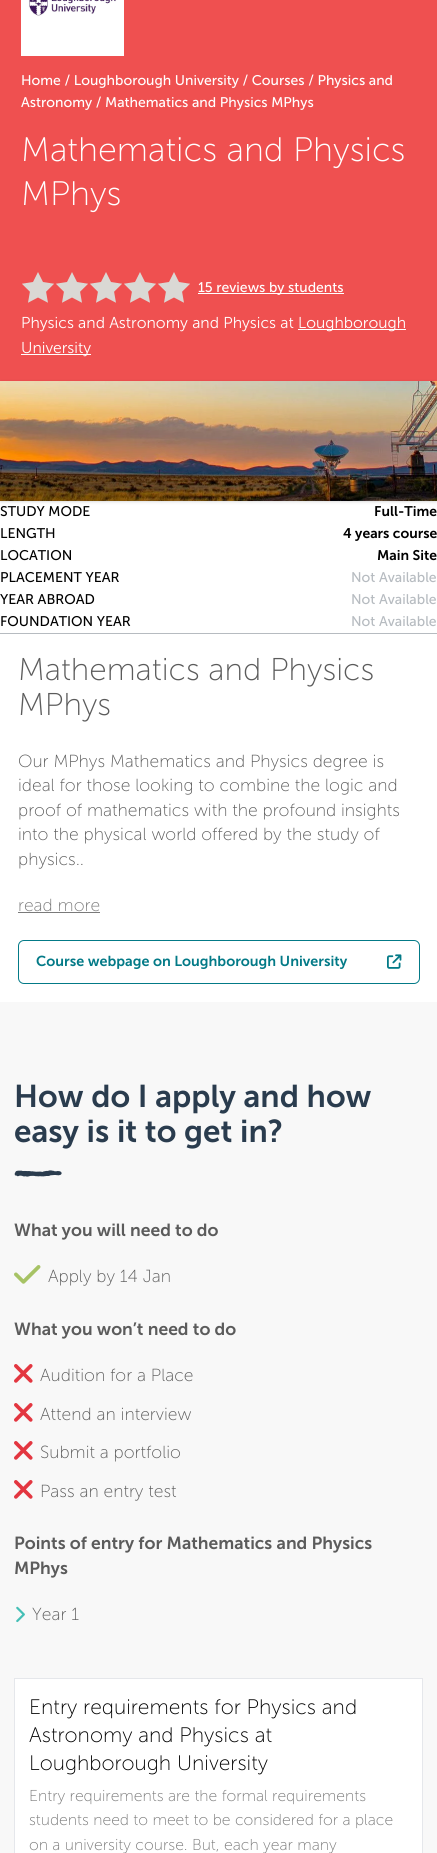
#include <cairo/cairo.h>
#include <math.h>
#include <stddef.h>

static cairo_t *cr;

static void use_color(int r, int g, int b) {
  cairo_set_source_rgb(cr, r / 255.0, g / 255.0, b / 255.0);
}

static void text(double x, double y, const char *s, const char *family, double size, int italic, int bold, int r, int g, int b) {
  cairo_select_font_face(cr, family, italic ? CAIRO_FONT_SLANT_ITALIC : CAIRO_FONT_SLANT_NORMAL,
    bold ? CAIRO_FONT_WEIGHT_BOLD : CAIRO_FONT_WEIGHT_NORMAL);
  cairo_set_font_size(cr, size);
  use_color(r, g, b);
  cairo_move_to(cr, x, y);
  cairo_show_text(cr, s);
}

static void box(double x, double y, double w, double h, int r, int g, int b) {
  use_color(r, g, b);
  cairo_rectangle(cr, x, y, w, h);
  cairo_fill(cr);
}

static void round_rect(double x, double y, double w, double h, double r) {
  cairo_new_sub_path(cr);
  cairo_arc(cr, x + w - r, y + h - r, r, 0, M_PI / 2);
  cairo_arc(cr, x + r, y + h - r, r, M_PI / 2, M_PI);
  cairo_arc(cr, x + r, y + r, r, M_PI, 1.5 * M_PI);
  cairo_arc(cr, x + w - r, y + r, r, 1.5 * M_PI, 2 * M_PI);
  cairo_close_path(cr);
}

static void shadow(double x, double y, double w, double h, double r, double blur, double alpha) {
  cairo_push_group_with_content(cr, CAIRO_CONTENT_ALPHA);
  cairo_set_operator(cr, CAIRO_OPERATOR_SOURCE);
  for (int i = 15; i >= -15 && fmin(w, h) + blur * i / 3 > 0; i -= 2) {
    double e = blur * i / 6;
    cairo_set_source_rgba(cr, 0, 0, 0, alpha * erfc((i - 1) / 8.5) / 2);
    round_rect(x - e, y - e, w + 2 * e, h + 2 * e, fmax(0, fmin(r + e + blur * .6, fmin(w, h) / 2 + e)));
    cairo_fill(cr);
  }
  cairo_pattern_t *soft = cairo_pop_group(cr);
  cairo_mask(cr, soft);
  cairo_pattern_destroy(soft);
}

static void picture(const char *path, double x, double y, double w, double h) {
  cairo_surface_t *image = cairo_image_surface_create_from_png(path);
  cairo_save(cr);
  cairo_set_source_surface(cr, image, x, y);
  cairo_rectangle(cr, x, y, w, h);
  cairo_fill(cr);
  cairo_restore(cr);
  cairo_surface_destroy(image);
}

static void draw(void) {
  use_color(255, 255, 255);
  cairo_paint(cr);
  box(0, 0, 437, 381, 239, 80, 80);
  picture("img_01.png", 21, 0, 103, 56);
  picture("img_02.png", 22, 272, 168, 31);
  box(198, 293, 146, 1, 255, 255, 255);
  box(298, 329, 108, 1, 255, 255, 255);
  box(21, 354, 70, 1, 255, 255, 255);
  use_color(0, 0, 0);
  shadow(1, 383, 435, 118, 0, 1, 0.1);
  shadow(0, 382, 437, 120, 0, 1.5, 0.1);
  picture("img_03.png", 0, 381, 437, 120);
  box(0, 633, 437, 1, 182, 187, 192);
  box(0, 1002, 437, 851, 248, 248, 248);
  box(18, 912, 82, 1, 122, 122, 122);
  round_rect(18.5, 940.5, 401, 43, 5.5);
  use_color(3, 122, 135);
  cairo_set_line_width(cr, 1);
  cairo_stroke(cr);
  picture("img_04.png", 387, 954, 15, 15);
  picture("img_05.png", 14, 1170, 48, 7);
  picture("img_06.png", 14, 1265, 27, 19);
  picture("img_07.png", 14, 1364, 19, 19);
  picture("img_07.png", 14, 1403, 19, 19);
  picture("img_07.png", 14, 1441, 19, 19);
  picture("img_07.png", 14, 1480, 19, 19);
  picture("img_08.png", 16, 1606, 9, 17);
  use_color(255, 255, 255);
  cairo_rectangle(cr, 14.5, 1678.5, 408, 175);
  cairo_fill_preserve(cr);
  use_color(229, 231, 235);
  cairo_stroke(cr);
  text(21, 85, "Home / Loughborough University / Courses / Physics and", "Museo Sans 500", 14, 0, 0, 255, 255, 255);
  text(21, 107, "Astronomy / Mathematics and Physics MPhys", "Museo Sans 500", 14, 0, 0, 255, 255, 255);
  text(21, 161, "Mathematics and Physics", "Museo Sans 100 Light", 34, 0, 0, 255, 255, 255);
  text(21, 205, "MPhys", "Museo Sans 100 Light", 34, 0, 0, 255, 255, 255);
  text(198, 292, "15 reviews by students", "Museo Sans 500", 14, 0, 0, 255, 255, 255);
  text(21, 328, "Physics and Astronomy and Physics at", "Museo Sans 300 Light", 15.75, 0, 0, 255, 255, 255);
  text(298, 328, "Loughborough", "Museo Sans 300 Light", 15.75, 0, 0, 255, 255, 255);
  text(21, 353, "University", "Museo Sans 300 Light", 15.75, 0, 0, 255, 255, 255);
  text(0, 516, "STUDY MODE", "Museo Sans 500", 14, 0, 0, 0, 0, 0);
  text(374, 516, "Full-Time", "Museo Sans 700 SemiBold", 14, 0, 0, 0, 0, 0);
  text(0, 538, "LENGTH", "Museo Sans 500", 14, 0, 0, 0, 0, 0);
  text(343, 538, "4 years course", "Museo Sans 700 SemiBold", 14, 0, 0, 0, 0, 0);
  text(0, 560, "LOCATION", "Museo Sans 500", 14, 0, 0, 0, 0, 0);
  text(377, 560, "Main Site", "Museo Sans 700 SemiBold", 14, 0, 0, 0, 0, 0);
  text(0, 582, "PLACEMENT YEAR", "Museo Sans 500", 14, 0, 0, 0, 0, 0);
  text(351, 582, "Not Available", "Museo Sans 500", 14, 0, 0, 182, 187, 192);
  text(0, 604, "YEAR ABROAD", "Museo Sans 500", 14, 0, 0, 0, 0, 0);
  text(351, 604, "Not Available", "Museo Sans 500", 14, 0, 0, 182, 187, 192);
  text(0, 626, "FOUNDATION YEAR", "Museo Sans 500", 14, 0, 0, 0, 0, 0);
  text(351, 626, "Not Available", "Museo Sans 500", 14, 0, 0, 182, 187, 192);
  text(18, 680, "Mathematics and Physics", "Museo Sans 100 Light", 31.5, 0, 0, 91, 91, 91);
  text(18, 715, "MPhys", "Museo Sans 100 Light", 31.5, 0, 0, 91, 91, 91);
  text(18, 767, "Our MPhys Mathematics and Physics degree is", "Museo Sans 100 Light", 17.5, 0, 0, 91, 91, 91);
  text(18, 791, "ideal for those looking to combine the logic and", "Museo Sans 100 Light", 17.5, 0, 0, 91, 91, 91);
  text(18, 816, "proof of mathematics with the profound insights", "Museo Sans 100 Light", 17.5, 0, 0, 91, 91, 91);
  text(18, 840, "into the physical world offered by the study of", "Museo Sans 100 Light", 17.5, 0, 0, 91, 91, 91);
  text(18, 865, "physics..", "Museo Sans 100 Light", 17.5, 0, 0, 91, 91, 91);
  text(18, 911, "read more", "Museo Sans 100 Light", 17.5, 0, 0, 122, 122, 122);
  text(36, 966, "Course webpage on Loughborough University", "Museo Sans 700 SemiBold", 14.4, 0, 0, 3, 122, 135);
  text(14, 1107, "How do I apply and how", "Museo Sans 700 SemiBold", 31.5, 0, 0, 42, 60, 78);
  text(14, 1142, "easy is it to get in?", "Museo Sans 700 SemiBold", 31.5, 0, 0, 42, 60, 78);
  text(14, 1236, "What you will need to do", "Museo Sans 700 SemiBold", 17.5, 0, 0, 91, 91, 91);
  text(48, 1282, "Apply by 14 Jan", "Museo Sans 100 Light", 17.5, 0, 0, 91, 91, 91);
  text(14, 1335, "What you won’t need to do", "Museo Sans 700 SemiBold", 17.5, 0, 0, 91, 91, 91);
  text(40, 1381, "Audition for a Place", "Museo Sans 100 Light", 17.5, 0, 0, 91, 91, 91);
  text(40, 1420, "Attend an interview", "Museo Sans 100 Light", 17.5, 0, 0, 91, 91, 91);
  text(40, 1458, "Submit a portfolio", "Museo Sans 100 Light", 17.5, 0, 0, 91, 91, 91);
  text(40, 1497, "Pass an entry test", "Museo Sans 100 Light", 17.5, 0, 0, 91, 91, 91);
  text(14, 1549, "Points of entry for Mathematics and Physics", "Museo Sans 700 SemiBold", 17.5, 0, 0, 91, 91, 91);
  text(14, 1574, "MPhys", "Museo Sans 700 SemiBold", 17.5, 0, 0, 91, 91, 91);
  text(32, 1620, "Year 1", "Museo Sans 100 Light", 17.5, 0, 0, 91, 91, 91);
  text(29, 1714, "Entry requirements for Physics and", "Museo Sans 100 Light", 21, 0, 0, 0, 0, 0);
  text(29, 1742, "Astronomy and Physics at", "Museo Sans 100 Light", 21, 0, 0, 0, 0, 0);
  text(29, 1770, "Loughborough University", "Museo Sans 100 Light", 21, 0, 0, 0, 0, 0);
  text(29, 1801, "Entry requirements are the formal requirements", "Museo Sans 100 Light", 15.75, 0, 0, 122, 122, 122);
  text(29, 1825, "students need to meet to be considered for a place", "Museo Sans 100 Light", 15.75, 0, 0, 122, 122, 122);
  text(29, 1850, "on a university course. But, each year many", "Museo Sans 100 Light", 15.75, 0, 0, 122, 122, 122);
}

int main(void) {
  cairo_surface_t *surface = cairo_image_surface_create(CAIRO_FORMAT_RGB24, 437, 1853);
  cr = cairo_create(surface);
  cairo_font_options_t *options = cairo_font_options_create();
  cairo_font_options_set_hint_metrics(options, CAIRO_HINT_METRICS_OFF);
  cairo_font_options_set_hint_style(options, CAIRO_HINT_STYLE_NONE);
  cairo_set_font_options(cr, options);
  cairo_set_miter_limit(cr, 4);
  draw();
  cairo_surface_write_to_png(surface, "out.png");
  cairo_font_options_destroy(options);
  cairo_destroy(cr);
  cairo_surface_destroy(surface);
  return 0;
}
